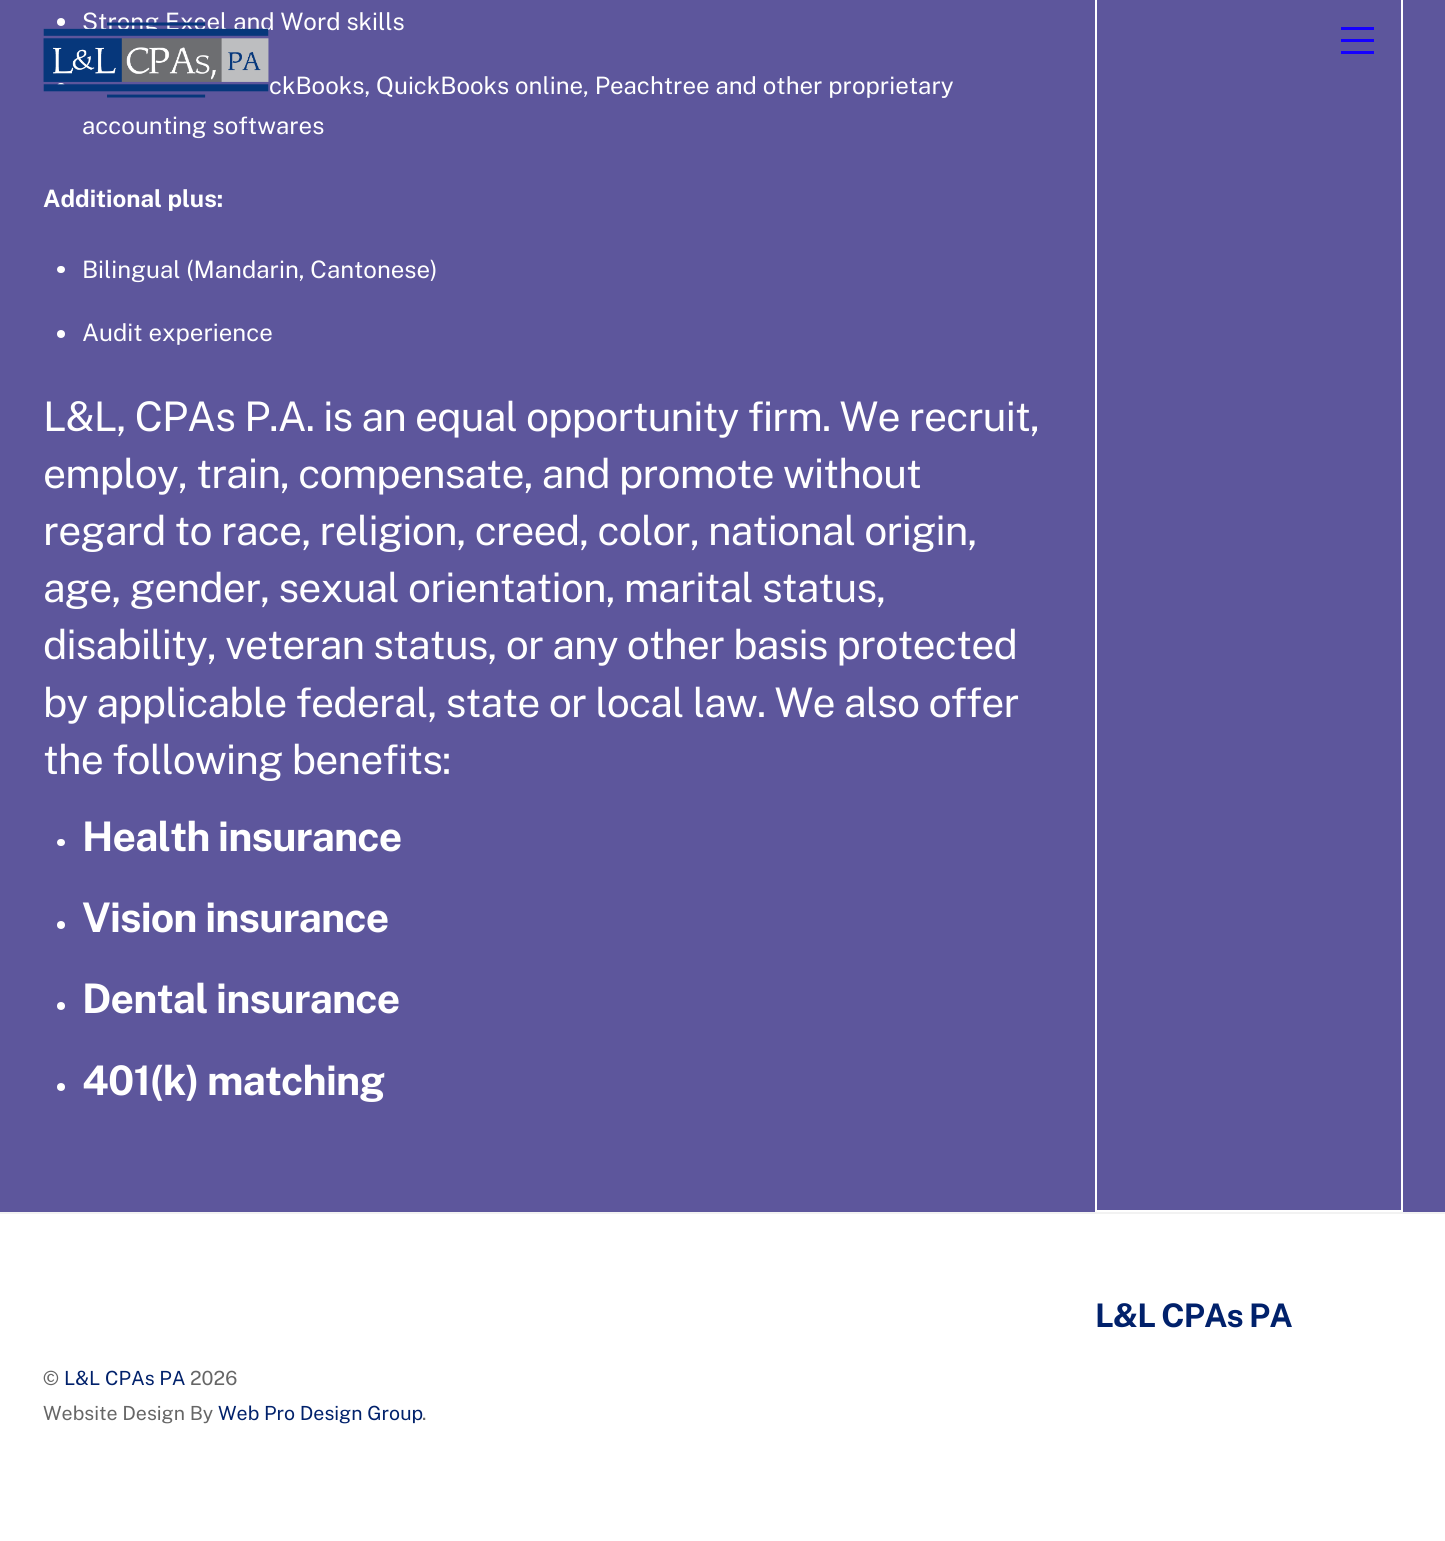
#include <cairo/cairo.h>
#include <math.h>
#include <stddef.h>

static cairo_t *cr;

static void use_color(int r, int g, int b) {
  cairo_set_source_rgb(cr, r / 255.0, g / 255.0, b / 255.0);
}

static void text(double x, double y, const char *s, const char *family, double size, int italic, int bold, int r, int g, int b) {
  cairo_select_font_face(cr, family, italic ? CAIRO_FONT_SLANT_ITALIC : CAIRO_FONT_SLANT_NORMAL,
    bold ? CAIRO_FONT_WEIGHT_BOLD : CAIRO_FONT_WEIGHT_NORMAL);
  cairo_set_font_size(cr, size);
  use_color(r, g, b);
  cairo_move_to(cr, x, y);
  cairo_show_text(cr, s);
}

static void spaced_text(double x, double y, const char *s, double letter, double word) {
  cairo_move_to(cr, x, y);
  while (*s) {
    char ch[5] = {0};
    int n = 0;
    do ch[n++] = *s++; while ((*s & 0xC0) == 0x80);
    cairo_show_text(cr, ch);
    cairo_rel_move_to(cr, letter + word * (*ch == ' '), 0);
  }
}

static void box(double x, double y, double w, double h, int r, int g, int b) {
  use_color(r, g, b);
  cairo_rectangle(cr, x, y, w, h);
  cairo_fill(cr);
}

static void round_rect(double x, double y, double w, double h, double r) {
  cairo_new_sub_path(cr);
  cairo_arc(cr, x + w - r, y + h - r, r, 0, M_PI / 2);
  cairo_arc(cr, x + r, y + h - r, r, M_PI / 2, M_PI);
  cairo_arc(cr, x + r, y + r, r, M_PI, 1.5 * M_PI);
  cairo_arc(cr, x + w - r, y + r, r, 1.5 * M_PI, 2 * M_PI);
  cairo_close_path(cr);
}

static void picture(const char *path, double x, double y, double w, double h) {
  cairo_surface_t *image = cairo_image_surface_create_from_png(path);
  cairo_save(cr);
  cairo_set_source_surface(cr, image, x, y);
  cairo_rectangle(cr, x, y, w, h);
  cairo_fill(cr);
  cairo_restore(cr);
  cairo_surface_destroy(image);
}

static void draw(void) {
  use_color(255, 255, 255);
  cairo_paint(cr);
  box(0, 0, 1445, 1212, 93, 86, 156);
  use_color(255, 255, 255);
  cairo_arc(cr, 61, 22, 4, 0, 2 * M_PI);
  cairo_fill(cr);
  round_rect(57, 83, 8, 7, 3.5);
  cairo_fill(cr);
  round_rect(57, 266, 8, 7, 3.5);
  cairo_fill(cr);
  cairo_arc(cr, 61, 334, 4, 0, 2 * M_PI);
  cairo_fill(cr);
  round_rect(57, 839, 8, 7, 3.5);
  cairo_fill(cr);
  cairo_arc(cr, 61, 925, 4, 0, 2 * M_PI);
  cairo_fill(cr);
  cairo_arc(cr, 61, 1006, 4, 0, 2 * M_PI);
  cairo_fill(cr);
  cairo_arc(cr, 61, 1087, 4, 0, 2 * M_PI);
  cairo_fill(cr);
  cairo_rectangle(cr, 1096, -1, 306, 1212);
  cairo_stroke(cr);
  box(1341, 51, 33, 3, 21, 0, 255);
  box(1341, 27, 33, 3, 21, 0, 255);
  box(1341, 39, 33, 3, 21, 0, 255);
  box(0, 1212, 1445, 2, 242, 242, 242);
  text(82, 30, "Strong Excel and Word skills", "Public Sans", 24, 0, 0, 255, 255, 255);
  text(269, 94, "ckBooks, QuickBooks online, Peachtree and other proprietary", "Public Sans", 24, 0, 0, 255, 255, 255);
  text(82, 134, "accounting softwares", "Public Sans", 24, 0, 0, 255, 255, 255);
  text(43, 207, "Additional plus:", "Public Sans", 24, 0, 1, 255, 255, 255);
  text(82, 278, "Bilingual (Mandarin, Cantonese)", "Public Sans", 24, 0, 0, 255, 255, 255);
  text(82, 341, "Audit experience", "Public Sans", 24, 0, 0, 255, 255, 255);
  cairo_set_font_size(cr, 40.8);
  spaced_text(43, 431, "L&L, CPAs P.A. is an equal opportunity firm. We recruit,", -0.82, 0);
  spaced_text(43, 488, "employ, train, compensate, and promote without", -0.82, 0);
  spaced_text(43, 545, "regard to race, religion, creed, color, national origin,", -0.82, 0);
  spaced_text(43, 602, "age, gender, sexual orientation, marital status,", -0.82, 0);
  spaced_text(43, 659, "disability, veteran status, or any other basis protected", -0.82, 0);
  spaced_text(43, 717, "by applicable federal, state or local law. We also offer", -0.82, 0);
  spaced_text(43, 774, "the following benefits:", -0.82, 0);
  cairo_select_font_face(cr, "Public Sans", CAIRO_FONT_SLANT_NORMAL, CAIRO_FONT_WEIGHT_BOLD);
  spaced_text(82, 851, "Health insurance", -0.82, 0);
  spaced_text(82, 932, "Vision insurance", -0.82, 0);
  spaced_text(82, 1013, "Dental insurance", -0.82, 0);
  spaced_text(82, 1095, "401(k) matching", -0.82, 0);
  picture("img_01.png", 43, 22, 226, 76);
  cairo_set_font_size(cr, 32.5);
  use_color(1, 33, 107);
  spaced_text(1095, 1327, "L&L CPAs PA", -1, 0);
  text(43, 1385, "©", "Public Sans", 19.5, 0, 0, 102, 102, 102);
  text(64, 1385, "L&L CPAs PA", "Public Sans", 19.5, 0, 0, 1, 33, 107);
  text(190, 1385, "2026", "Public Sans", 19.5, 0, 0, 102, 102, 102);
  text(43, 1420, "Website Design By", "Public Sans", 19.5, 0, 0, 102, 102, 102);
  text(218, 1420, "Web Pro Design Group", "Public Sans", 19.5, 0, 0, 1, 33, 107);
  text(422, 1420, ".", "Public Sans", 19.5, 0, 0, 102, 102, 102);
}

int main(void) {
  cairo_surface_t *surface = cairo_image_surface_create(CAIRO_FORMAT_RGB24, 1445, 1541);
  cr = cairo_create(surface);
  cairo_font_options_t *options = cairo_font_options_create();
  cairo_font_options_set_hint_metrics(options, CAIRO_HINT_METRICS_OFF);
  cairo_font_options_set_hint_style(options, CAIRO_HINT_STYLE_NONE);
  cairo_set_font_options(cr, options);
  cairo_set_miter_limit(cr, 4);
  draw();
  cairo_surface_write_to_png(surface, "out.png");
  cairo_font_options_destroy(options);
  cairo_destroy(cr);
  cairo_surface_destroy(surface);
  return 0;
}
